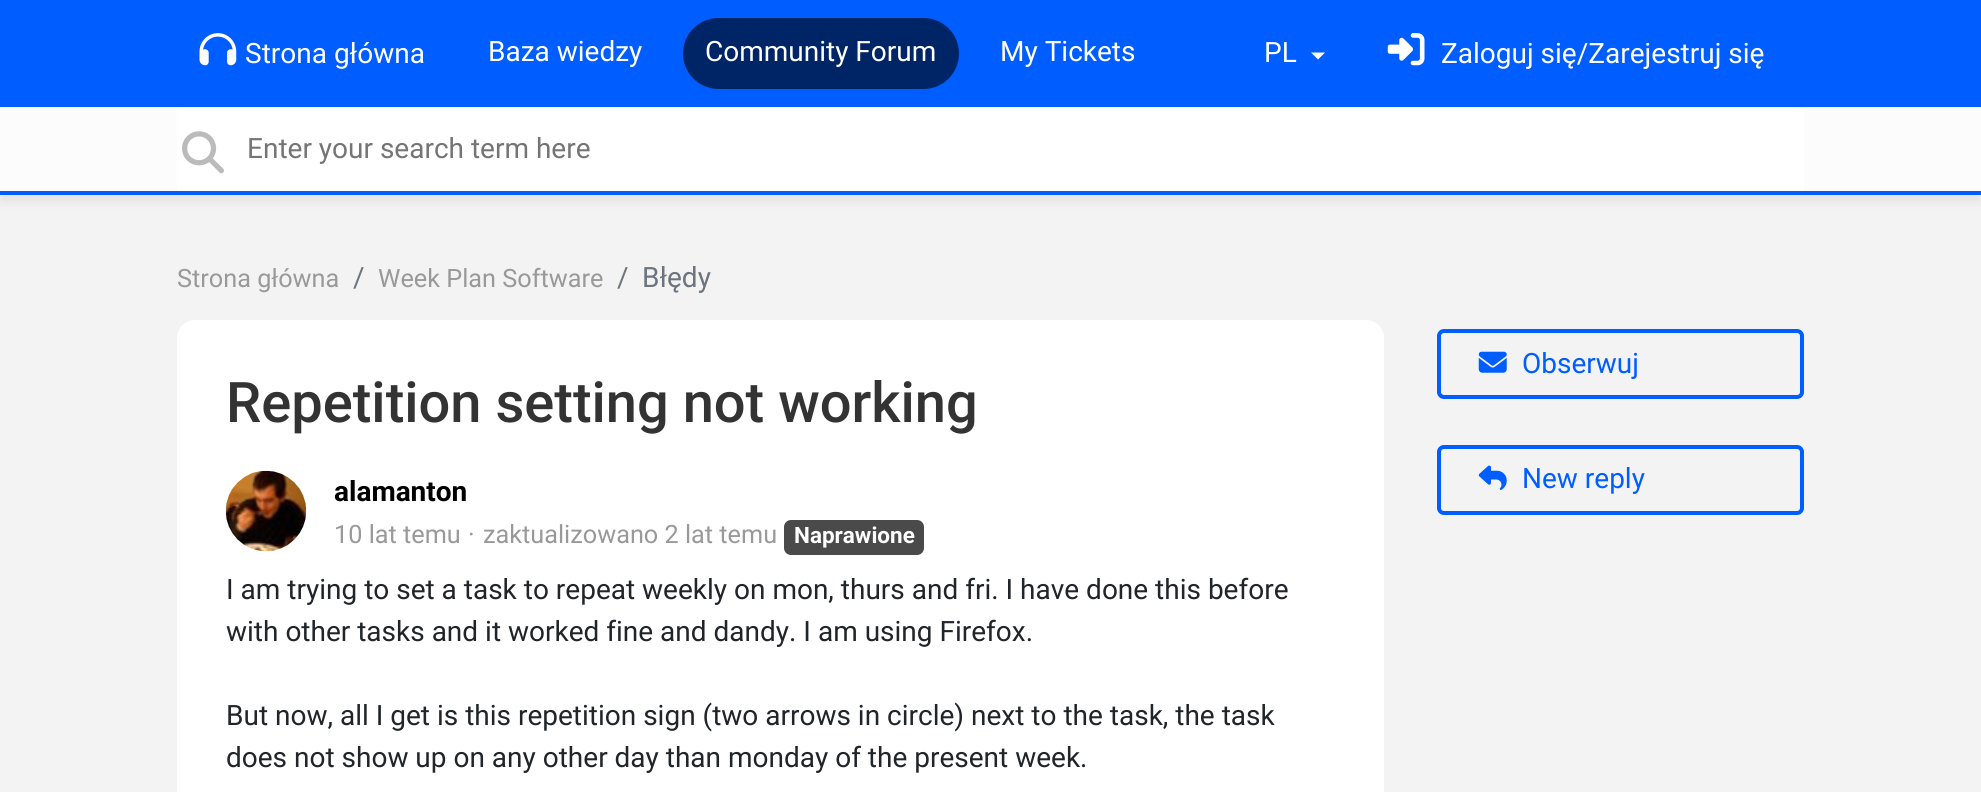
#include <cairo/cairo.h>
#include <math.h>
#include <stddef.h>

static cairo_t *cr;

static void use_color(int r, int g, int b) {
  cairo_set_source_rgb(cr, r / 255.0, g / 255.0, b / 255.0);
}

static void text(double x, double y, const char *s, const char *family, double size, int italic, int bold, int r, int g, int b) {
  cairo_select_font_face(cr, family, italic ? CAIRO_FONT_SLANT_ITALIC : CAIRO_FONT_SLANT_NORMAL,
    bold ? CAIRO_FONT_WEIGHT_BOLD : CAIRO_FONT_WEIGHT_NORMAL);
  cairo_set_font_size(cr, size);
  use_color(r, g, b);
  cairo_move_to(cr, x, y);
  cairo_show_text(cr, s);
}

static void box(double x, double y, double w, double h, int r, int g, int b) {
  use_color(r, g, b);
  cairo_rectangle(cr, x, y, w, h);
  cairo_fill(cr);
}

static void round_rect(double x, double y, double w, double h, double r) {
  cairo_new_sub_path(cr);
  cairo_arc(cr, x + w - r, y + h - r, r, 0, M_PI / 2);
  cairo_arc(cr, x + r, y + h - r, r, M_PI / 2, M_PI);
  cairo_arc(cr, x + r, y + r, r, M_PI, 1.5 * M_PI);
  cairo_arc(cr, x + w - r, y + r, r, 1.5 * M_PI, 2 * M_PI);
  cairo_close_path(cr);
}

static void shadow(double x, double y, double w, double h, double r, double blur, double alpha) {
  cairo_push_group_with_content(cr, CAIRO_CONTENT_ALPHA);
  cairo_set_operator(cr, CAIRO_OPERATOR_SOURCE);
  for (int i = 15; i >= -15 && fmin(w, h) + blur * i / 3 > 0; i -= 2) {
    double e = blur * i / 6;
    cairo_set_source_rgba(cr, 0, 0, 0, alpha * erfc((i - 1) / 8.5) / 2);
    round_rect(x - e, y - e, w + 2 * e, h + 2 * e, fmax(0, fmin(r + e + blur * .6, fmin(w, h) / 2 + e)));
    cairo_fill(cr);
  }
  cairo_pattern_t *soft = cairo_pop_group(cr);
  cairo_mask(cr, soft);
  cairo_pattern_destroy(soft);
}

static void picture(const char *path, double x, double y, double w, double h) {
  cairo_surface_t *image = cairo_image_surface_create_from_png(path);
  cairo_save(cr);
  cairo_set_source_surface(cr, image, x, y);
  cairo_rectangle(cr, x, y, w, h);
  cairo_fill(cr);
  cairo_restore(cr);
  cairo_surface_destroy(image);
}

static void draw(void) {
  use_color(243, 243, 243);
  cairo_paint(cr);
  box(0, 0, 1981, 107, 0, 93, 255);
  picture("img_01.png", 199, 33, 38, 33);
  use_color(0, 37, 102);
  round_rect(683, 18, 276, 71, 35.5);
  cairo_fill(cr);
  use_color(255, 255, 255);
  cairo_new_path(cr);
  cairo_move_to(cr, 1311, 52.5);
  cairo_line_to(cr, 1325, 52.5);
  cairo_line_to(cr, 1318, 59.5);
  cairo_close_path(cr);
  cairo_fill(cr);
  picture("img_02.png", 1387, 33, 38, 33);
  use_color(100, 100, 100);
  shadow(0, 116, 1981, 87, 0, 4.5, 0.1);
  box(0, 107, 1981, 84, 252, 252, 252);
  box(0, 191, 1981, 4, 0, 93, 255);
  box(177, 107, 1627, 84, 255, 255, 255);
  picture("img_03.png", 182, 131, 42, 43);
  round_rect(177, 320, 1207, 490, 18);
  cairo_fill(cr);
  picture("img_04.png", 225, 470, 82, 82);
  use_color(74, 74, 74);
  round_rect(784, 520, 140, 35, 7);
  cairo_fill(cr);
  round_rect(1439, 331, 363, 66, 5);
  use_color(0, 93, 255);
  cairo_set_line_width(cr, 4);
  cairo_stroke(cr);
  picture("img_05.png", 1478, 351, 29, 22);
  round_rect(1439, 447, 363, 66, 5);
  cairo_stroke(cr);
  picture("img_06.png", 1478, 465, 29, 25);
  text(245, 63, "Strona główna", "Roboto", 28, 0, 0, 255, 255, 255);
  text(488, 61, "Baza wiedzy", "Roboto", 28, 0, 0, 255, 255, 255);
  text(705, 61, "Community Forum", "Roboto", 28, 0, 0, 255, 255, 255);
  text(1000, 61, "My Tickets", "Roboto", 28, 0, 0, 255, 255, 255);
  text(1264, 62, "PL", "Roboto", 28, 0, 0, 255, 255, 255);
  text(1441, 63, "Zaloguj się/Zarejestruj się", "Roboto", 28, 0, 0, 255, 255, 255);
  text(247, 158, "Enter your search term here", "Roboto", 28, 0, 0, 117, 117, 117);
  text(177, 287, "Strona główna", "Roboto", 25.25, 0, 0, 153, 153, 153);
  text(353, 287, "/", "Roboto", 28, 0, 0, 108, 117, 125);
  text(378, 287, "Week Plan Software", "Roboto", 25.25, 0, 0, 153, 153, 153);
  text(617, 287, "/", "Roboto", 28, 0, 0, 108, 117, 125);
  text(642, 287, "Błędy", "Roboto", 28, 0, 0, 108, 117, 125);
  text(226, 422, "Repetition setting not working", "Roboto Medium", 56, 0, 0, 51, 51, 51);
  text(334, 501, "alamanton", "Roboto", 28, 0, 1, 0, 0, 0);
  text(334, 543, "10 lat temu", "Roboto", 25.25, 0, 0, 153, 153, 153);
  text(468, 543, "·", "Roboto", 25.25, 0, 0, 153, 153, 153);
  text(483, 543, "zaktualizowano 2 lat temu", "Roboto", 25.25, 0, 0, 153, 153, 153);
  text(794, 543, "Naprawione", "Roboto", 22.5, 0, 1, 255, 255, 255);
  text(226, 599, "I am trying to set a task to repeat weekly on mon, thurs and fri. I have done this before", "Roboto", 28, 0, 0, 33, 37, 41);
  text(226, 641, "with other tasks and it worked fine and dandy. I am using Firefox.", "Roboto", 28, 0, 0, 33, 37, 41);
  text(226, 725, "But now, all I get is this repetition sign (two arrows in circle) next to the task, the task", "Roboto", 28, 0, 0, 33, 37, 41);
  text(226, 767, "does not show up on any other day than monday of the present week.", "Roboto", 28, 0, 0, 33, 37, 41);
  text(1522, 373, "Obserwuj", "Roboto", 28, 0, 0, 0, 93, 255);
  text(1522, 488, "New reply", "Roboto", 28, 0, 0, 0, 93, 255);
}

int main(void) {
  cairo_surface_t *surface = cairo_image_surface_create(CAIRO_FORMAT_RGB24, 1981, 792);
  cr = cairo_create(surface);
  cairo_font_options_t *options = cairo_font_options_create();
  cairo_font_options_set_hint_metrics(options, CAIRO_HINT_METRICS_OFF);
  cairo_font_options_set_hint_style(options, CAIRO_HINT_STYLE_NONE);
  cairo_set_font_options(cr, options);
  cairo_set_miter_limit(cr, 4);
  draw();
  cairo_surface_write_to_png(surface, "out.png");
  cairo_font_options_destroy(options);
  cairo_destroy(cr);
  cairo_surface_destroy(surface);
  return 0;
}
